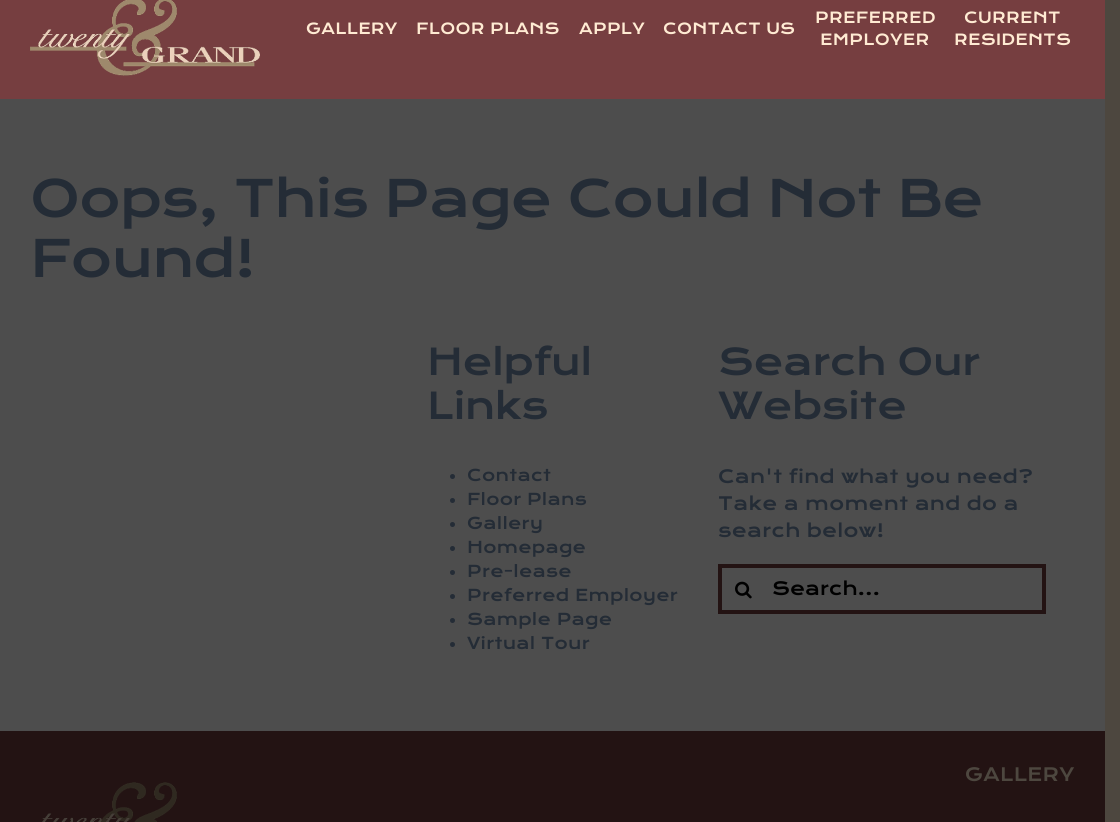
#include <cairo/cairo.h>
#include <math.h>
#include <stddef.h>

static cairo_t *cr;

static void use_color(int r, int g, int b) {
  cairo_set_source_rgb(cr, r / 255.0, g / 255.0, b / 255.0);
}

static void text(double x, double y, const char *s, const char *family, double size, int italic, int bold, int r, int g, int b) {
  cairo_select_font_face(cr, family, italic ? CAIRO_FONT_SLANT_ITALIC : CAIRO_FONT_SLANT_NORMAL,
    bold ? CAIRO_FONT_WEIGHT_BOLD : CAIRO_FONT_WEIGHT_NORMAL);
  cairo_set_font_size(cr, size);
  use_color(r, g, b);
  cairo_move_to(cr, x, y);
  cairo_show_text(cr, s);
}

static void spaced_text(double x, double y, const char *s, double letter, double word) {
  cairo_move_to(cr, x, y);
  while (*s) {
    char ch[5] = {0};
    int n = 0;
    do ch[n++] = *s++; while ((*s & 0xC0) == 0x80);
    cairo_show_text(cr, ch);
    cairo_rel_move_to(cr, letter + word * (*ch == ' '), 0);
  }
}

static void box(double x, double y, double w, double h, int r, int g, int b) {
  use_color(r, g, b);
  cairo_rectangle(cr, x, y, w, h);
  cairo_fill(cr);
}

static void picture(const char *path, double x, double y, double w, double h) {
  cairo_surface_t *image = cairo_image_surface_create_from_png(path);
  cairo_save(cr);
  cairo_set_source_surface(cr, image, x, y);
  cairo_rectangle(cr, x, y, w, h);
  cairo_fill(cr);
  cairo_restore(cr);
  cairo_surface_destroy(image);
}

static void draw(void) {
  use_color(77, 71, 63);
  cairo_paint(cr);
  box(0, 99, 1105, 632, 77, 77, 77);
  box(0, 0, 1105, 99, 118, 62, 64);
  picture("img_01.png", 30, 0, 230, 76);
  use_color(36, 44, 54);
  cairo_arc(cr, 452.5, 476.5, 2.5, 0, 2 * M_PI);
  cairo_fill(cr);
  cairo_arc(cr, 452.5, 500.5, 2.5, 0, 2 * M_PI);
  cairo_fill(cr);
  cairo_arc(cr, 452.5, 524.5, 2.5, 0, 2 * M_PI);
  cairo_fill(cr);
  cairo_arc(cr, 452.5, 548.5, 2.5, 0, 2 * M_PI);
  cairo_fill(cr);
  cairo_arc(cr, 452.5, 572.5, 2.5, 0, 2 * M_PI);
  cairo_fill(cr);
  cairo_arc(cr, 452.5, 596.5, 2.5, 0, 2 * M_PI);
  cairo_fill(cr);
  cairo_arc(cr, 452.5, 620.5, 2.5, 0, 2 * M_PI);
  cairo_fill(cr);
  cairo_arc(cr, 452.5, 644.5, 2.5, 0, 2 * M_PI);
  cairo_fill(cr);
  cairo_rectangle(cr, 720, 566, 324, 46);
  use_color(35, 19, 19);
  cairo_set_line_width(cr, 4);
  cairo_stroke(cr);
  picture("img_02.png", 735, 581, 17, 18);
  box(0, 731, 1105, 91, 35, 19, 19);
  picture("img_03.png", 42, 782, 135, 40);
  cairo_select_font_face(cr, "Krona One", CAIRO_FONT_SLANT_NORMAL, CAIRO_FONT_WEIGHT_NORMAL);
  cairo_set_font_size(cr, 15);
  use_color(255, 235, 211);
  spaced_text(306, 34, "GALLERY", 0.25, 0);
  spaced_text(416, 34, "FLOOR PLANS", 0.25, 0);
  spaced_text(579, 34, "APPLY", 0.25, 0);
  spaced_text(663, 34, "CONTACT US", 0.25, 0);
  spaced_text(815, 23, "PREFERRED", 0.25, 0);
  spaced_text(820, 45, "EMPLOYER", 0.25, 0);
  spaced_text(964, 23, "CURRENT", 0.25, 0);
  spaced_text(954, 45, "RESIDENTS", 0.25, 0);
  cairo_set_font_size(cr, 50);
  use_color(36, 44, 54);
  spaced_text(30, 217, "Oops, This Page Could Not Be", -0.75, 0);
  spaced_text(30, 277, "Found!", -0.75, 0);
  cairo_set_font_size(cr, 36);
  spaced_text(427, 375, "Helpful", -0.5, 0);
  spaced_text(427, 419, "Links", -0.5, 0);
  cairo_set_font_size(cr, 16);
  spaced_text(467, 481, "Contact", 0.25, 0);
  spaced_text(467, 505, "Floor Plans", 0.25, 0);
  spaced_text(467, 529, "Gallery", 0.25, 0);
  spaced_text(467, 553, "Homepage", 0.25, 0);
  spaced_text(467, 577, "Pre-lease", 0.25, 0);
  spaced_text(467, 601, "Preferred Employer", 0.25, 0);
  spaced_text(467, 625, "Sample Page", 0.25, 0);
  spaced_text(467, 649, "Virtual Tour", 0.25, 0);
  cairo_set_font_size(cr, 36);
  spaced_text(718, 375, "Search Our", -0.5, 0);
  spaced_text(718, 419, "Website", -0.5, 0);
  cairo_set_font_size(cr, 18);
  spaced_text(718, 483, "Can't find what you need?", 0.25, 0);
  spaced_text(718, 510, "Take a moment and do a", 0.25, 0);
  spaced_text(718, 537, "search below!", 0.25, 0);
  text(772, 595, "Search...", "Krona One", 18, 0, 0, 0, 0, 0);
  use_color(77, 71, 63);
  spaced_text(965, 781, "GALLERY", 0.25, 0);
}

int main(void) {
  cairo_surface_t *surface = cairo_image_surface_create(CAIRO_FORMAT_RGB24, 1120, 822);
  cr = cairo_create(surface);
  cairo_font_options_t *options = cairo_font_options_create();
  cairo_font_options_set_hint_metrics(options, CAIRO_HINT_METRICS_OFF);
  cairo_font_options_set_hint_style(options, CAIRO_HINT_STYLE_NONE);
  cairo_set_font_options(cr, options);
  cairo_set_miter_limit(cr, 4);
  draw();
  cairo_surface_write_to_png(surface, "out.png");
  cairo_font_options_destroy(options);
  cairo_destroy(cr);
  cairo_surface_destroy(surface);
  return 0;
}
